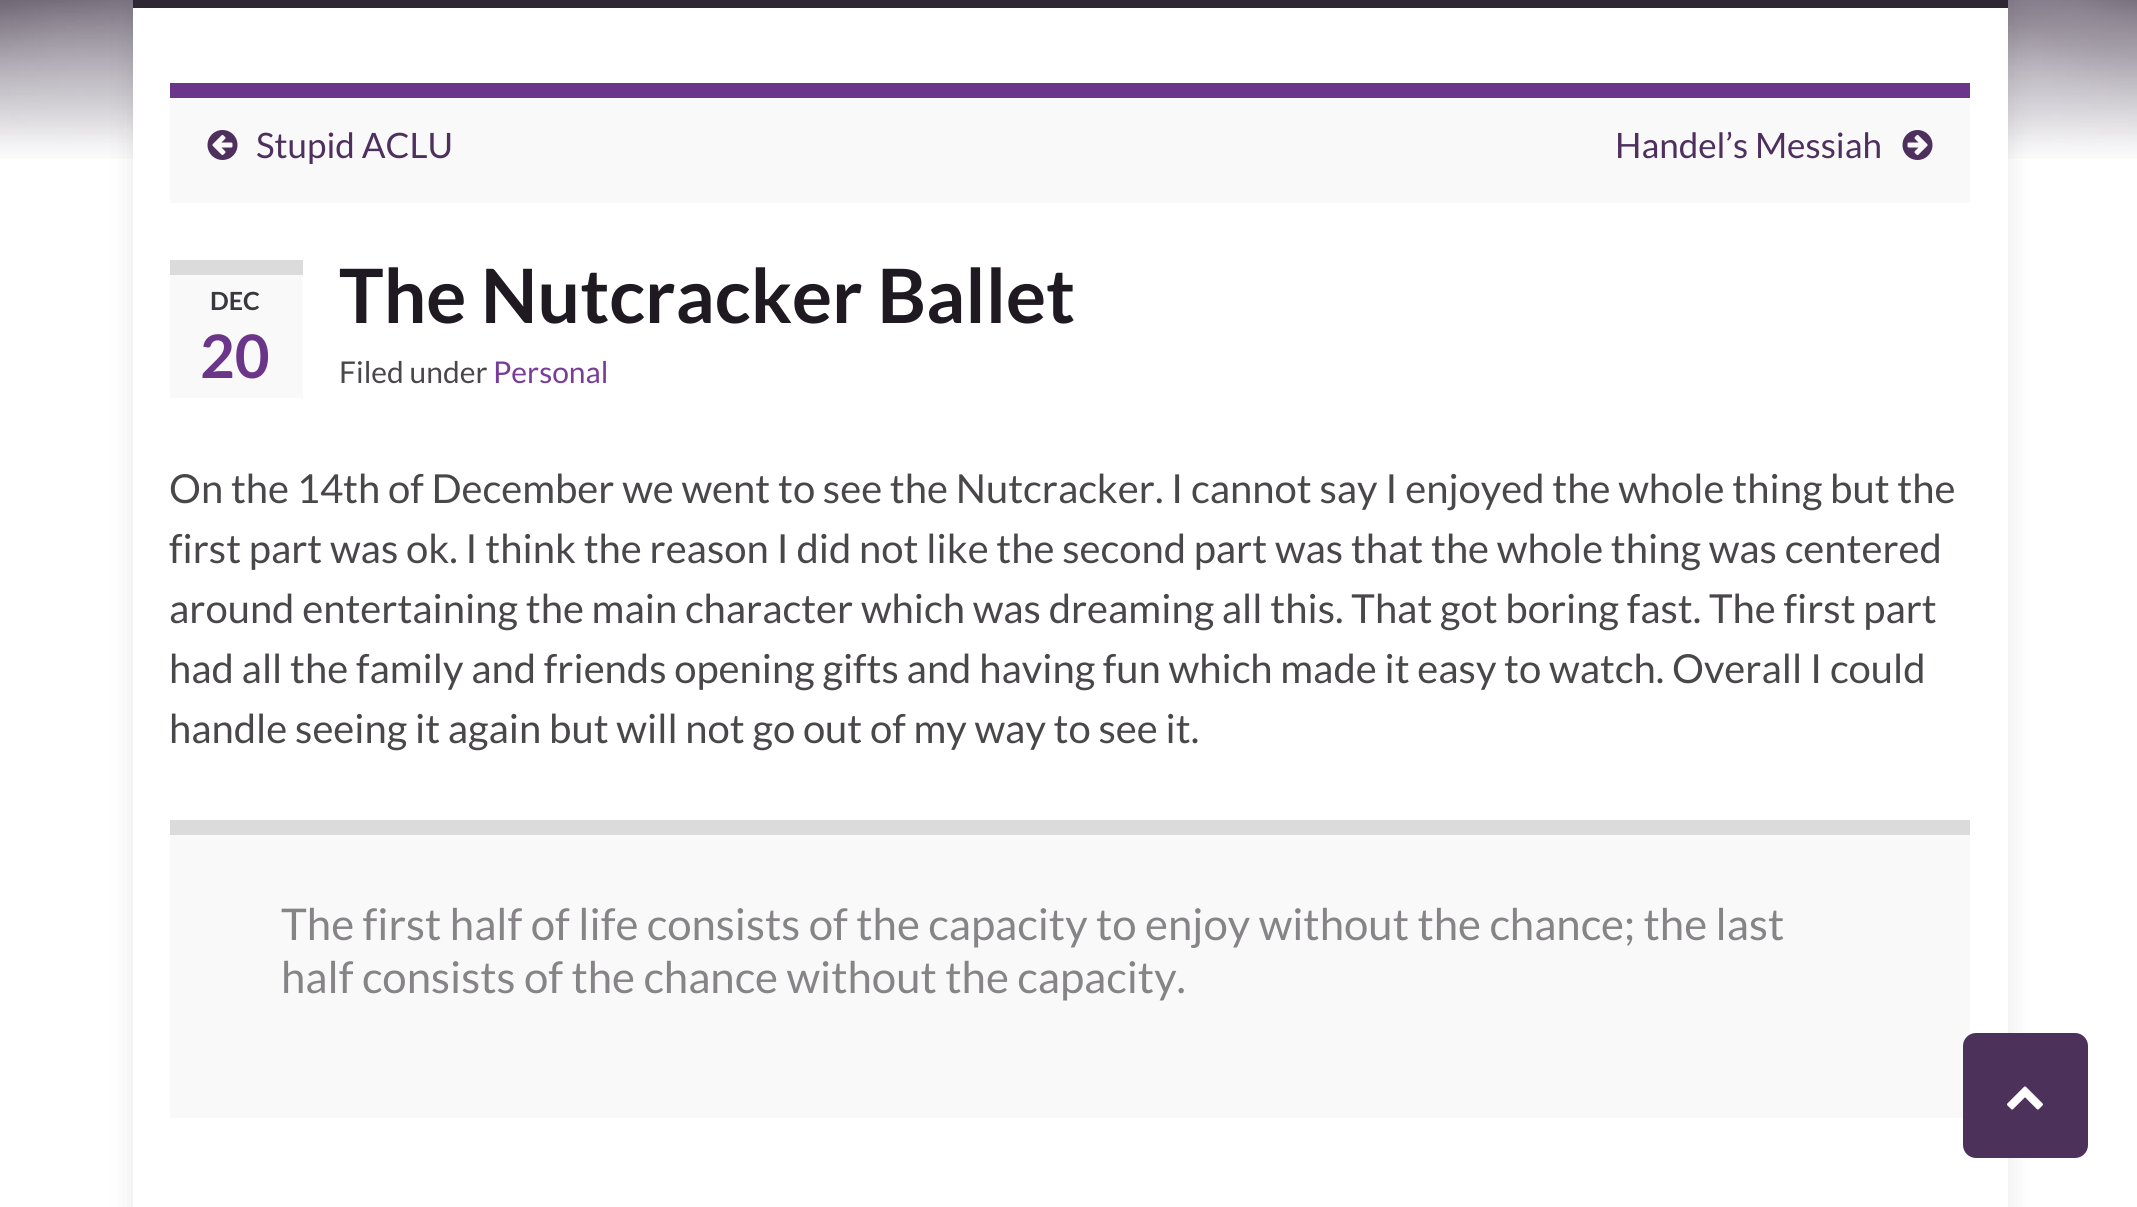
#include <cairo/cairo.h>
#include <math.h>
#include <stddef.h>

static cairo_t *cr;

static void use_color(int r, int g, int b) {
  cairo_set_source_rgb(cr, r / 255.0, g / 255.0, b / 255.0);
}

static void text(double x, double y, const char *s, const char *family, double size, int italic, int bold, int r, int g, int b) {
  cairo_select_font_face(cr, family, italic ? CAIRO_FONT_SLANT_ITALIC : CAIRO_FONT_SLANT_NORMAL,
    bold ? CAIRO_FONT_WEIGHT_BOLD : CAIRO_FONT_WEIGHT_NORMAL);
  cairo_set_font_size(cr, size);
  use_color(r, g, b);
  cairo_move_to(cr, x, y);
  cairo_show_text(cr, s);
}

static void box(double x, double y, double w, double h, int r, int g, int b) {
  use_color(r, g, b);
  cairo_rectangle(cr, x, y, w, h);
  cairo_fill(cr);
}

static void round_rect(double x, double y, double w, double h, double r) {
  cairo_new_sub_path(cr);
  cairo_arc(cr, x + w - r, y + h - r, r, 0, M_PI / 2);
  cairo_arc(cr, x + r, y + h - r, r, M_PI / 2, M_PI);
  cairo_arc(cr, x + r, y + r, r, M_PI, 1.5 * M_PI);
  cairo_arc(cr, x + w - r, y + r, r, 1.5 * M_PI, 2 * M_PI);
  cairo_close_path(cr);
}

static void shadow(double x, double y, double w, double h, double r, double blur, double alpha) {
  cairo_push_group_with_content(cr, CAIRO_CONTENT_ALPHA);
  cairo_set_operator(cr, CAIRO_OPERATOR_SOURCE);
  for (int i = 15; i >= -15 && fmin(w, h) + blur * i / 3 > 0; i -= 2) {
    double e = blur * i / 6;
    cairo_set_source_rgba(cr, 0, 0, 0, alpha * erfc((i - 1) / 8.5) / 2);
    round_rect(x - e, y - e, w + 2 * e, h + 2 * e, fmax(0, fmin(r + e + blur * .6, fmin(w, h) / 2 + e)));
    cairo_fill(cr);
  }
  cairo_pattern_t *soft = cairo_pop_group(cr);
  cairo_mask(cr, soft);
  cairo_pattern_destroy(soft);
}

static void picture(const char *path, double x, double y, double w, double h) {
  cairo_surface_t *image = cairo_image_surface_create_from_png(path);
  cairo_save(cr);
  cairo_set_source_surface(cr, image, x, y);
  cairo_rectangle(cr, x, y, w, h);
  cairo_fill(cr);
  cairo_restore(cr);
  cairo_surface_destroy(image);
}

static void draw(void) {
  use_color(255, 255, 255);
  cairo_paint(cr);
  picture("img_01.png", 0, 0, 2137, 159);
  use_color(0, 0, 0);
  shadow(133, -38, 1875, 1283, 0, 12.5, 0.1);
  box(133, 0, 1875, 8, 47, 39, 51);
  box(133, 8, 1875, 1199, 255, 255, 255);
  box(170, 98, 1800, 105, 249, 249, 249);
  box(170, 83, 1800, 15, 107, 53, 137);
  picture("img_02.png", 207, 130, 31, 30);
  picture("img_03.png", 1902, 130, 31, 30);
  box(170, 275, 133, 123, 249, 249, 249);
  box(170, 260, 133, 15, 219, 219, 219);
  box(170, 835, 1800, 283, 249, 249, 249);
  box(170, 820, 1800, 15, 219, 219, 219);
  use_color(76, 49, 90);
  round_rect(1963, 1033, 125, 125, 13);
  cairo_fill(cr);
  picture("img_04.png", 2007, 1086, 36, 24);
  text(256, 158, "Stupid ACLU", "Lato", 35, 0, 0, 78, 48, 94);
  text(1615, 158, "Handel’s Messiah", "Lato", 35, 0, 0, 78, 48, 94);
  text(210, 310, "DEC", "Lato", 25, 0, 1, 59, 56, 61);
  text(200, 378, "20", "Lato", 60, 0, 1, 107, 53, 137);
  text(339, 323, "The Nutcracker Ballet", "Lato", 75, 0, 1, 31, 26, 34);
  text(339, 383, "Filed under", "Lato", 30, 0, 0, 74, 71, 75);
  text(493, 383, "Personal", "Lato", 30, 0, 0, 120, 61, 152);
  text(169, 503, "On the 14th of December we went to see the Nutcracker. I cannot say I enjoyed the whole thing but the", "Lato", 40, 0, 0, 74, 71, 75);
  text(169, 563, "first part was ok. I think the reason I did not like the second part was that the whole thing was centered", "Lato", 40, 0, 0, 74, 71, 75);
  text(169, 623, "around entertaining the main character which was dreaming all this. That got boring fast. The first part", "Lato", 40, 0, 0, 74, 71, 75);
  text(169, 683, "had all the family and friends opening gifts and having fun which made it easy to watch. Overall I could", "Lato", 40, 0, 0, 74, 71, 75);
  text(169, 743, "handle seeing it again but will not go out of my way to see it.", "Lato", 40, 0, 0, 74, 71, 75);
  text(281, 940, "The first half of life consists of the capacity to enjoy without the chance; the last", "Lato", 43.75, 0, 0, 134, 132, 135);
  text(281, 993, "half consists of the chance without the capacity.", "Lato", 43.75, 0, 0, 134, 132, 135);
}

int main(void) {
  cairo_surface_t *surface = cairo_image_surface_create(CAIRO_FORMAT_RGB24, 2137, 1207);
  cr = cairo_create(surface);
  cairo_font_options_t *options = cairo_font_options_create();
  cairo_font_options_set_hint_metrics(options, CAIRO_HINT_METRICS_OFF);
  cairo_font_options_set_hint_style(options, CAIRO_HINT_STYLE_NONE);
  cairo_set_font_options(cr, options);
  cairo_set_miter_limit(cr, 4);
  draw();
  cairo_surface_write_to_png(surface, "out.png");
  cairo_font_options_destroy(options);
  cairo_destroy(cr);
  cairo_surface_destroy(surface);
  return 0;
}
